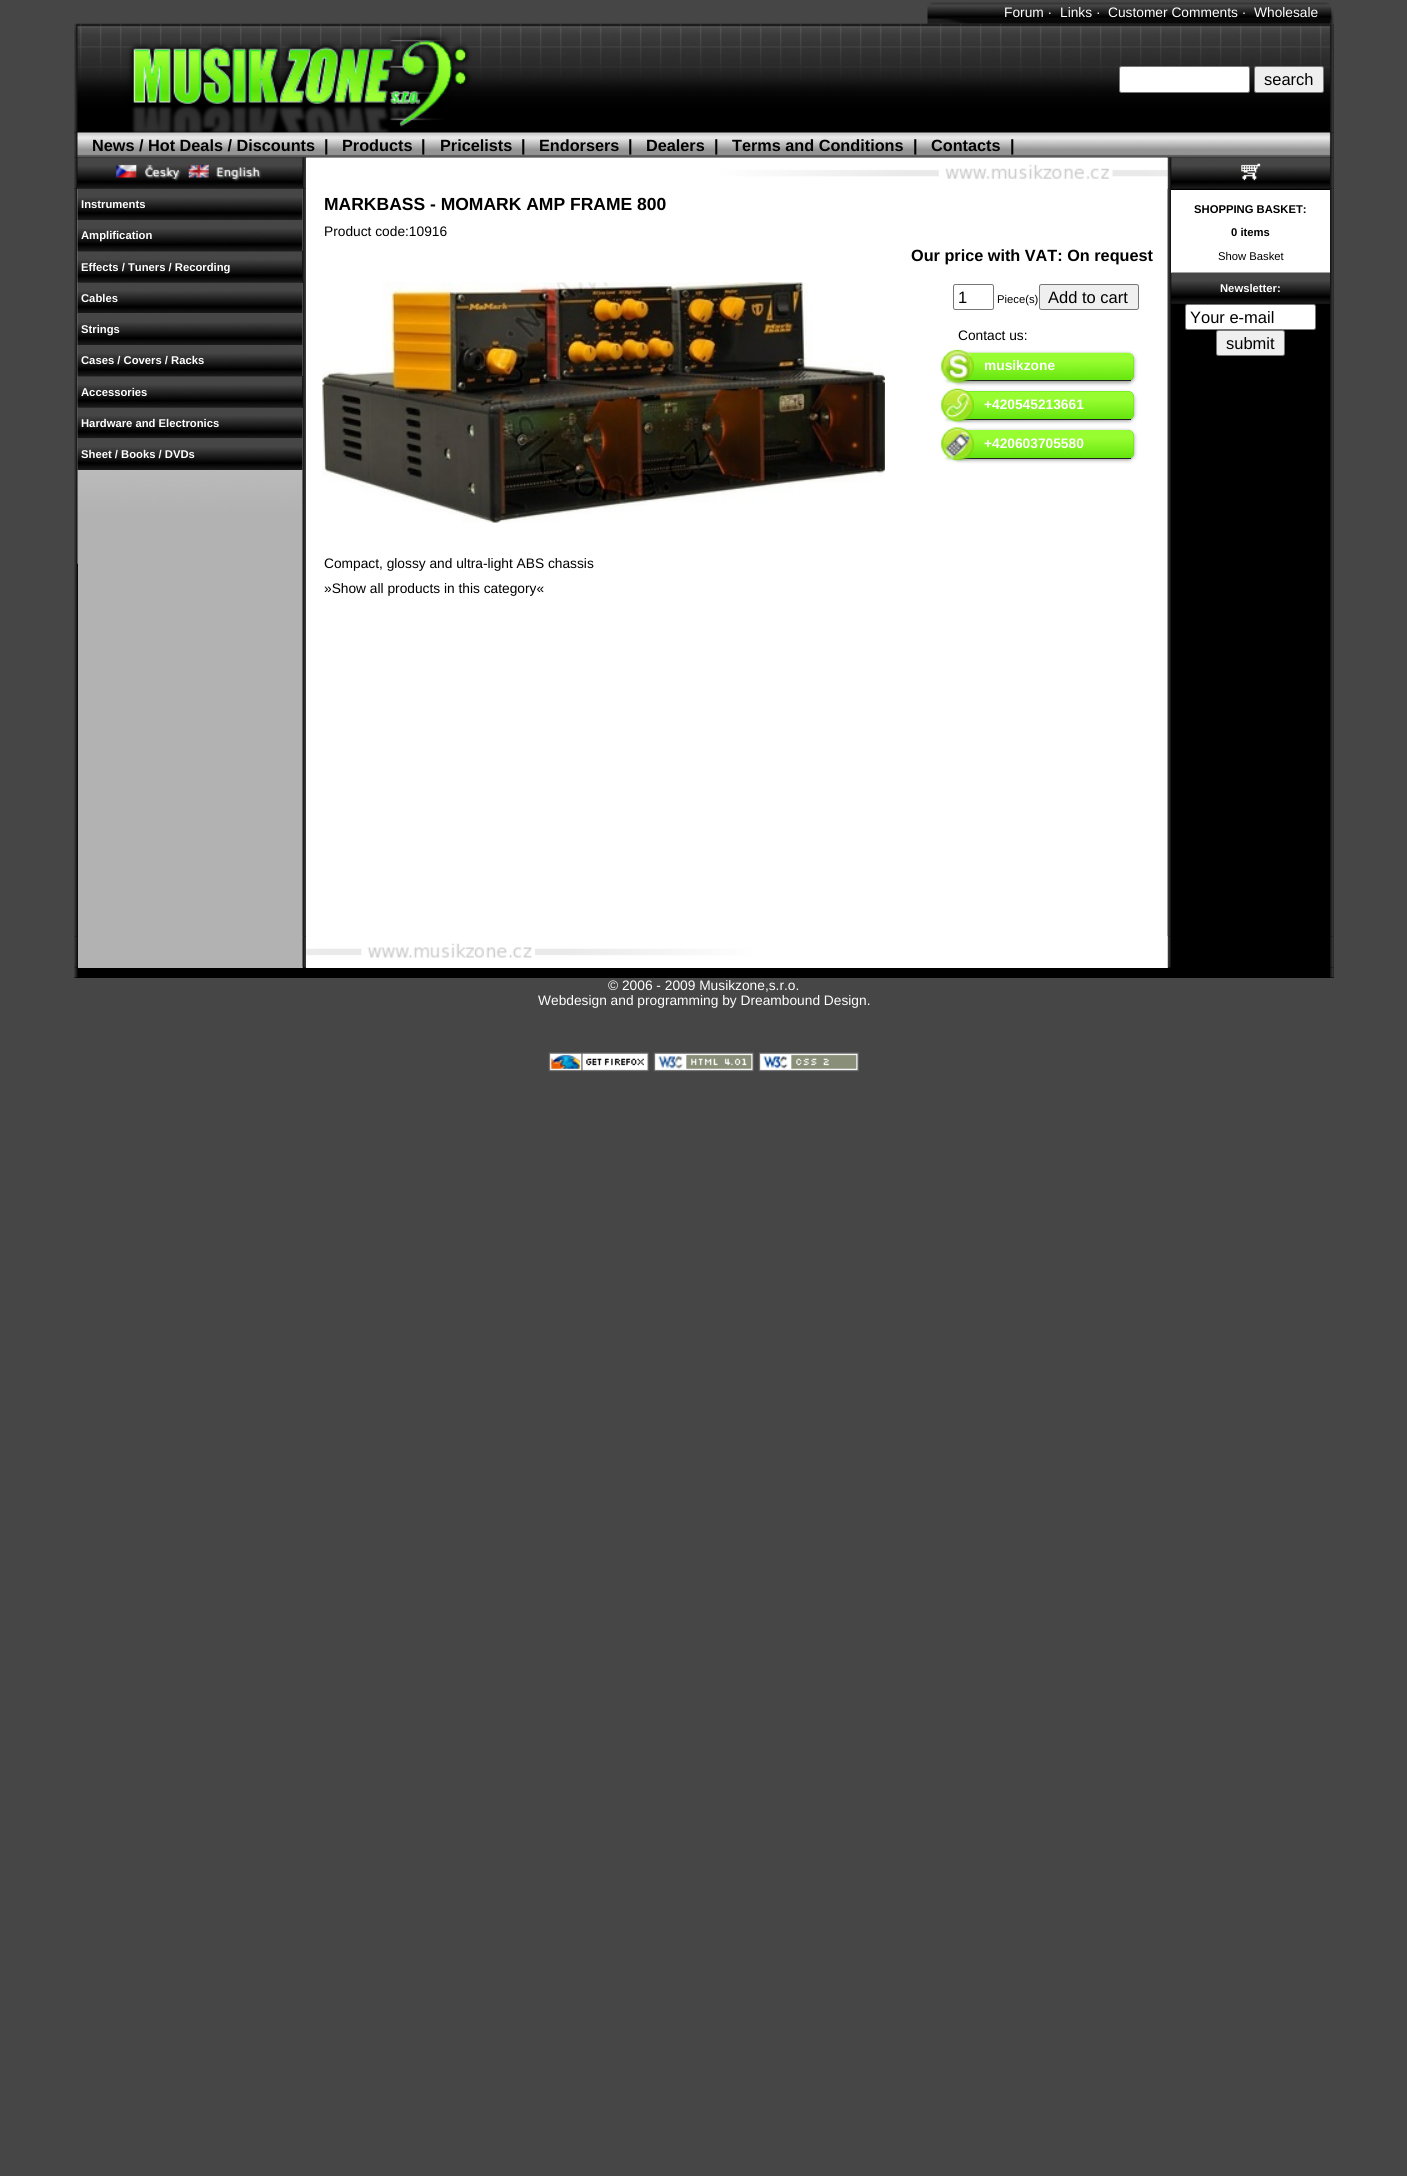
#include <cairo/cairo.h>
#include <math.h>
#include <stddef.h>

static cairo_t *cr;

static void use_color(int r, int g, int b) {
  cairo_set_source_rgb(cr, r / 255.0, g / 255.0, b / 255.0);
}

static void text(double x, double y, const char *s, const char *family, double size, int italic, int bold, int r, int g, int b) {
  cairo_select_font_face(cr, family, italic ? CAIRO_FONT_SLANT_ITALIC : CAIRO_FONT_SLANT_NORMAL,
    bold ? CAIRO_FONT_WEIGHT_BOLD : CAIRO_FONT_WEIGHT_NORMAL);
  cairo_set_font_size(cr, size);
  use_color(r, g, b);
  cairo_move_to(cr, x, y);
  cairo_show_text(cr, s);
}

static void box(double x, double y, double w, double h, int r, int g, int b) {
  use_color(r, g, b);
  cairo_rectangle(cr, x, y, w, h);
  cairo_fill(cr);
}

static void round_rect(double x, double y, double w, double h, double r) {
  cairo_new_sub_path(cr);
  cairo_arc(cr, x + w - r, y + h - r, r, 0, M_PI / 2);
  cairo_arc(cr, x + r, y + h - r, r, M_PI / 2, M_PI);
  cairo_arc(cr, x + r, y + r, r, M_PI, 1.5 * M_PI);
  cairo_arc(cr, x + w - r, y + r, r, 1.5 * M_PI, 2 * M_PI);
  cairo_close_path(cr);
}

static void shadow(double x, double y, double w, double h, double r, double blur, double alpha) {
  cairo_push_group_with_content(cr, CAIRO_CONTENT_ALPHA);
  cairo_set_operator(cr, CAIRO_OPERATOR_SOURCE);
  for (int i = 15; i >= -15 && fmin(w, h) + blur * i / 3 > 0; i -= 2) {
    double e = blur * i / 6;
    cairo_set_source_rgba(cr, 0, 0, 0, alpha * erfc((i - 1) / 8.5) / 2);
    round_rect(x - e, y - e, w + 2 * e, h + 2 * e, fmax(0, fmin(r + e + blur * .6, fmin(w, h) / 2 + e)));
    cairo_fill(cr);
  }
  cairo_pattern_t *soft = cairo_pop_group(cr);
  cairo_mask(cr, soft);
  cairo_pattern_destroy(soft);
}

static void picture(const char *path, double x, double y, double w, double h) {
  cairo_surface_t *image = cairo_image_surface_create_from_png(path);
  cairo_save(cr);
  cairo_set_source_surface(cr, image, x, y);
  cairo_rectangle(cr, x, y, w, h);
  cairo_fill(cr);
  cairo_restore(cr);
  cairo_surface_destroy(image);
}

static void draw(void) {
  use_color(70, 70, 70);
  cairo_paint(cr);
  box(74, 24, 1260, 954, 0, 0, 0);
  picture("img_01.png", 927, 2, 407, 22);
  picture("img_02.png", 74, 23, 1260, 110);
  use_color(255, 255, 255);
  round_rect(1119.5, 66.5, 130, 26, 2);
  cairo_fill_preserve(cr);
  use_color(118, 118, 118);
  cairo_set_line_width(cr, 1);
  cairo_stroke(cr);
  use_color(239, 239, 239);
  round_rect(1254.5, 66.5, 69, 26, 2);
  cairo_fill_preserve(cr);
  use_color(118, 118, 118);
  cairo_stroke(cr);
  picture("img_03.png", 74, 132, 1260, 26);
  picture("img_04.png", 74, 157, 4, 32);
  picture("img_06.png", 302, 157, 5, 32);
  picture("img_12.png", 74, 189, 4, 748);
  box(78, 189, 225, 747, 178, 178, 178);
  picture("img_13.png", 77, 188, 226, 376);
  picture("img_14.png", 77, 188, 226, 32);
  box(306, 158, 862, 31, 255, 255, 255);
  picture("img_15.png", 77, 220, 226, 32);
  box(78, 251, 225, 32, 0, 0, 0);
  picture("img_16.png", 77, 251, 226, 32);
  picture("img_17.png", 77, 282, 226, 32);
  picture("img_18.png", 77, 313, 226, 32);
  picture("img_19.png", 77, 345, 226, 32);
  box(78, 376, 225, 32, 0, 0, 0);
  picture("img_20.png", 77, 376, 226, 32);
  picture("img_21.png", 77, 407, 226, 32);
  picture("img_22.png", 77, 438, 226, 32);
  picture("img_23.png", 302, 188, 5, 749);
  picture("img_05.png", 77, 157, 226, 32);
  picture("img_08.png", 1167, 157, 5, 32);
  box(1171, 158, 1, 31, 0, 0, 0);
  picture("img_09.png", 1171, 157, 159, 32);
  box(306, 189, 862, 747, 255, 255, 255);
  picture("img_31.png", 1167, 188, 5, 749);
  picture("img_07.png", 306, 157, 862, 32);
  picture("img_10.png", 1241, 163, 20, 18);
  picture("img_11.png", 1330, 157, 4, 32);
  picture("img_24.png", 322, 282, 563, 241);
  round_rect(953.5, 284.5, 40, 25, 2);
  use_color(118, 118, 118);
  cairo_stroke(cr);
  use_color(239, 239, 239);
  round_rect(1039.5, 284.5, 99, 25, 2);
  cairo_fill_preserve(cr);
  use_color(118, 118, 118);
  cairo_stroke(cr);
  use_color(153, 153, 153);
  shadow(953, 354, 181, 29, 6, 2, 1);
  use_color(90, 224, 7);
  round_rect(953, 353, 181, 28, 6);
  cairo_fill(cr);
  picture("img_25.png", 958, 352, 176, 30);
  box(956, 380, 175, 1, 34, 34, 34);
  picture("img_26.png", 941, 349, 33, 36);
  use_color(153, 153, 153);
  shadow(953, 393, 181, 28, 6, 2, 1);
  use_color(90, 224, 7);
  round_rect(953, 391, 181, 29, 6);
  cairo_fill(cr);
  picture("img_27.png", 955, 391, 179, 29);
  box(956, 419, 175, 1, 34, 34, 34);
  picture("img_28.png", 941, 388, 33, 35);
  use_color(153, 153, 153);
  shadow(953, 431, 181, 29, 6, 2, 1);
  use_color(90, 224, 7);
  round_rect(953, 430, 181, 29, 6);
  cairo_fill(cr);
  picture("img_29.png", 963, 430, 171, 28);
  box(956, 458, 175, 1, 34, 34, 34);
  picture("img_30.png", 941, 427, 33, 35);
  box(1171, 189, 1, 747, 0, 0, 0);
  box(1171, 190, 159, 83, 255, 255, 255);
  picture("img_32.png", 1171, 272, 159, 32);
  round_rect(1185.5, 304.5, 130, 25, 2);
  cairo_fill_preserve(cr);
  use_color(118, 118, 118);
  cairo_stroke(cr);
  use_color(239, 239, 239);
  round_rect(1216.5, 330.5, 68, 25, 2);
  cairo_fill_preserve(cr);
  use_color(118, 118, 118);
  cairo_stroke(cr);
  picture("img_33.png", 1330, 188, 4, 749);
  picture("img_34.png", 74, 936, 4, 32);
  box(78, 936, 225, 32, 178, 178, 178);
  picture("img_35.png", 302, 936, 4, 32);
  box(306, 936, 862, 32, 255, 255, 255);
  picture("img_37.png", 1167, 936, 4, 32);
  picture("img_36.png", 306, 936, 862, 32);
  picture("img_38.png", 1330, 936, 4, 32);
  picture("img_39.png", 74, 967, 4, 11);
  picture("img_40.png", 1330, 967, 4, 11);
  picture("img_41.png", 548, 1052, 101, 20);
  picture("img_42.png", 653, 1052, 101, 20);
  picture("img_43.png", 758, 1052, 101, 20);
  text(1004, 17, "Forum ·", "Liberation Sans", 13.75, 0, 0, 255, 255, 255);
  text(1060, 17, "Links ·", "Liberation Sans", 13.75, 0, 0, 255, 255, 255);
  text(1108, 17, "Customer Comments ·", "Liberation Sans", 13.75, 0, 0, 255, 255, 255);
  text(1254, 17, "Wholesale", "Liberation Sans", 13.75, 0, 0, 255, 255, 255);
  text(1264, 85, "search", "Liberation Sans", 16.5, 0, 0, 0, 0, 0);
  text(92, 151, "News / Hot Deals / Discounts", "Liberation Sans", 16.25, 0, 1, 0, 0, 0);
  text(324, 151, "|", "Liberation Sans", 16.25, 0, 1, 0, 0, 0);
  text(342, 151, "Products", "Liberation Sans", 16.25, 0, 1, 0, 0, 0);
  text(421, 151, "|", "Liberation Sans", 16.25, 0, 1, 0, 0, 0);
  text(440, 151, "Pricelists", "Liberation Sans", 16.25, 0, 1, 0, 0, 0);
  text(521, 151, "|", "Liberation Sans", 16.25, 0, 1, 0, 0, 0);
  text(539, 151, "Endorsers", "Liberation Sans", 16.25, 0, 1, 0, 0, 0);
  text(628, 151, "|", "Liberation Sans", 16.25, 0, 1, 0, 0, 0);
  text(646, 151, "Dealers", "Liberation Sans", 16.25, 0, 1, 0, 0, 0);
  text(714, 151, "|", "Liberation Sans", 16.25, 0, 1, 0, 0, 0);
  text(732, 151, "Terms and Conditions", "Liberation Sans", 16.25, 0, 1, 0, 0, 0);
  text(913, 151, "|", "Liberation Sans", 16.25, 0, 1, 0, 0, 0);
  text(931, 151, "Contacts", "Liberation Sans", 16.25, 0, 1, 0, 0, 0);
  text(1010, 151, "|", "Liberation Sans", 16.25, 0, 1, 0, 0, 0);
  text(81, 208, "Instruments", "Liberation Sans", 11.25, 0, 1, 255, 255, 255);
  text(81, 239, "Amplification", "Liberation Sans", 11.25, 0, 1, 255, 255, 255);
  text(81, 271, "Effects / Tuners / Recording", "Liberation Sans", 11.25, 0, 1, 255, 255, 255);
  text(81, 302, "Cables", "Liberation Sans", 11.25, 0, 1, 255, 255, 255);
  text(81, 333, "Strings", "Liberation Sans", 11.25, 0, 1, 255, 255, 255);
  text(81, 364, "Cases / Covers / Racks", "Liberation Sans", 11.25, 0, 1, 255, 255, 255);
  text(81, 396, "Accessories", "Liberation Sans", 11.25, 0, 1, 255, 255, 255);
  text(81, 427, "Hardware and Electronics", "Liberation Sans", 11.25, 0, 1, 255, 255, 255);
  text(81, 458, "Sheet / Books / DVDs", "Liberation Sans", 11.25, 0, 1, 255, 255, 255);
  text(324, 210, "MARKBASS - MOMARK AMP FRAME 800", "Liberation Sans", 17.5, 0, 1, 0, 0, 0);
  text(324, 236, "Product code:10916", "Liberation Sans", 13.75, 0, 0, 0, 0, 0);
  text(911, 261, "Our price with VAT: On request", "Liberation Sans", 16.25, 0, 1, 0, 0, 0);
  text(958, 303, "1", "Liberation Sans", 16.5, 0, 0, 0, 0, 0);
  text(997, 303, "Piece(s)", "Liberation Sans", 11.25, 0, 0, 0, 0, 0);
  text(1048, 303, "Add to cart", "Liberation Sans", 16.5, 0, 0, 0, 0, 0);
  text(958, 340, "Contact us:", "Liberation Sans", 13.75, 0, 0, 0, 0, 0);
  text(984, 370, "musikzone", "Liberation Sans", 13.75, 0, 1, 255, 255, 255);
  text(984, 409, "+420545213661", "Liberation Sans", 13.75, 0, 1, 255, 255, 255);
  text(984, 448, "+420603705580", "Liberation Sans", 13.75, 0, 1, 255, 255, 255);
  text(324, 568, "Compact, glossy and ultra-light ABS chassis", "Liberation Sans", 13.75, 0, 0, 0, 0, 0);
  text(324, 593, "»Show all products in this category«", "Liberation Sans", 13.75, 0, 0, 0, 0, 0);
  text(1194, 213, "SHOPPING BASKET:", "Liberation Sans", 11.25, 0, 1, 0, 0, 0);
  text(1231, 236, "0 items", "Liberation Sans", 11.25, 0, 1, 0, 0, 0);
  text(1218, 260, "Show Basket", "Liberation Sans", 11.25, 0, 0, 0, 0, 0);
  text(1220, 292, "Newsletter:", "Liberation Sans", 11.25, 0, 1, 255, 255, 255);
  text(1190, 323, "Your e-mail", "Liberation Sans", 16.5, 0, 0, 0, 0, 0);
  text(1226, 349, "submit", "Liberation Sans", 16.5, 0, 0, 0, 0, 0);
  text(608, 990, "© 2006 - 2009 Musikzone,s.r.o.", "Liberation Sans", 13.75, 0, 0, 255, 255, 255);
  text(538, 1005, "Webdesign and programming by Dreambound Design.", "Liberation Sans", 13.75, 0, 0, 255, 255, 255);
}

int main(void) {
  cairo_surface_t *surface = cairo_image_surface_create(CAIRO_FORMAT_RGB24, 1407, 2176);
  cr = cairo_create(surface);
  cairo_font_options_t *options = cairo_font_options_create();
  cairo_font_options_set_hint_metrics(options, CAIRO_HINT_METRICS_OFF);
  cairo_font_options_set_hint_style(options, CAIRO_HINT_STYLE_NONE);
  cairo_set_font_options(cr, options);
  cairo_set_miter_limit(cr, 4);
  draw();
  cairo_surface_write_to_png(surface, "out.png");
  cairo_font_options_destroy(options);
  cairo_destroy(cr);
  cairo_surface_destroy(surface);
  return 0;
}
